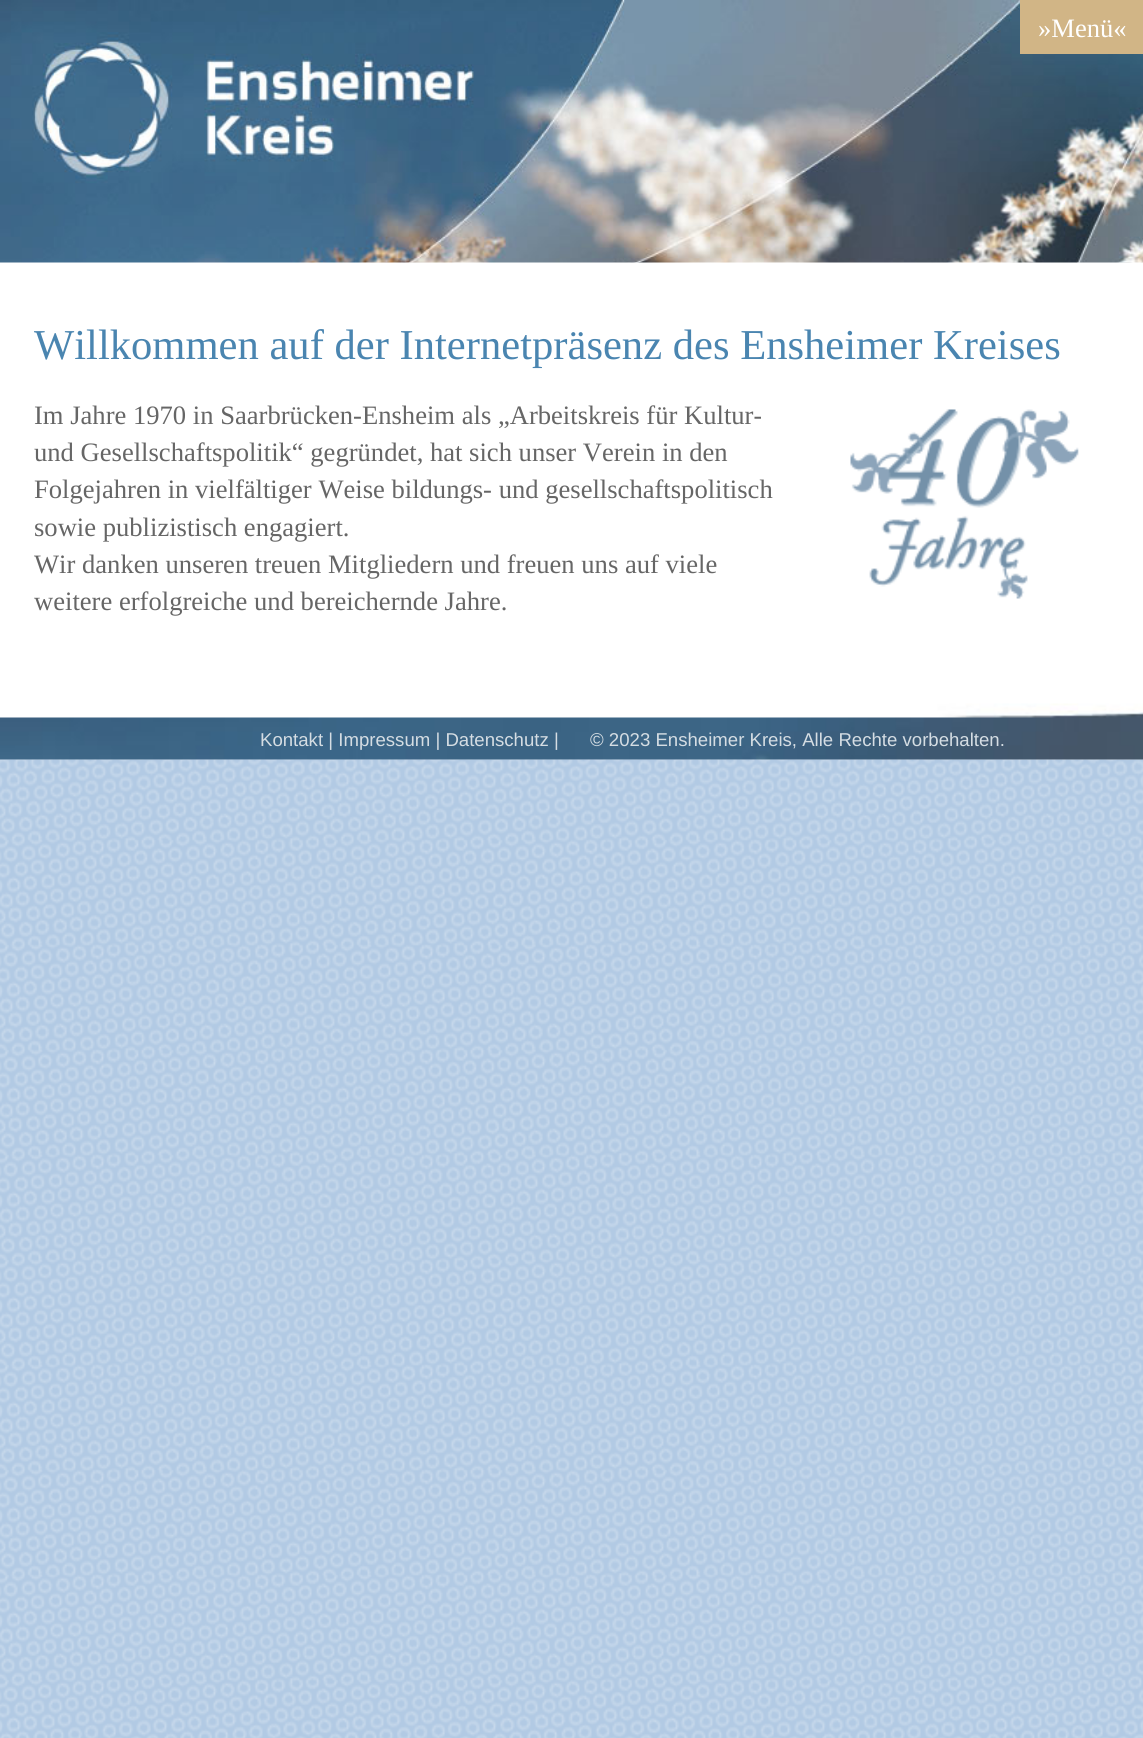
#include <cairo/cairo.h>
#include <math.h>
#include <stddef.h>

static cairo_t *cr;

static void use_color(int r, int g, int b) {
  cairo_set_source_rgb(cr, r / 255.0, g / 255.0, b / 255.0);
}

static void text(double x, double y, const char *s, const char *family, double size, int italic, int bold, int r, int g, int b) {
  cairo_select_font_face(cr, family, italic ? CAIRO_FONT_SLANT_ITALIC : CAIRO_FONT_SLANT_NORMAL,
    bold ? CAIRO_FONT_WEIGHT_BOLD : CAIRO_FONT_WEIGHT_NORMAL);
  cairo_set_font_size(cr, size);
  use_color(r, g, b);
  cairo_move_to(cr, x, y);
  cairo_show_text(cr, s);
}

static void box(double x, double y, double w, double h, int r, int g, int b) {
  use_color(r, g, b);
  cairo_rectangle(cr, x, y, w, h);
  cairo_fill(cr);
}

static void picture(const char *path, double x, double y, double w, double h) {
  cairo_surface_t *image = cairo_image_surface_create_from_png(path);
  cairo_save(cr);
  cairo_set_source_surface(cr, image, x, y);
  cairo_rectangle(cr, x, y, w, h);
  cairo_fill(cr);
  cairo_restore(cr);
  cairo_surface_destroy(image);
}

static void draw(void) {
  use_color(255, 255, 255);
  cairo_paint(cr);
  picture("img_01.png", 0, 759, 1143, 979);
  picture("img_03.png", 0, 0, 1143, 263);
  box(1020, 0, 123, 54, 209, 181, 134);
  picture("img_02.png", 0, 759, 1143, 1);
  picture("img_04.png", 850, 409, 229, 190);
  picture("img_05.png", 0, 662, 1143, 98);
  text(1038, 37, "»Menü«", "Liberation Serif", 26.6, 0, 0, 255, 255, 255);
  text(34, 359, "Willkommen auf der Internetpräsenz des Ensheimer Kreises", "Liberation Serif", 42.6, 0, 0, 74, 133, 176);
  text(34, 424, "Im Jahre 1970 in Saarbrücken-Ensheim als „Arbeitskreis für Kultur-", "Liberation Serif", 26.6, 0, 0, 102, 102, 102);
  text(34, 461, "und Gesellschaftspolitik“ gegründet, hat sich unser Verein in den", "Liberation Serif", 26.6, 0, 0, 102, 102, 102);
  text(34, 498, "Folgejahren in vielfältiger Weise bildungs- und gesellschaftspolitisch", "Liberation Serif", 26.6, 0, 0, 102, 102, 102);
  text(34, 536, "sowie publizistisch engagiert.", "Liberation Serif", 26.6, 0, 0, 102, 102, 102);
  text(34, 573, "Wir danken unseren treuen Mitgliedern und freuen uns auf viele", "Liberation Serif", 26.6, 0, 0, 102, 102, 102);
  text(34, 610, "weitere erfolgreiche und bereichernde Jahre.", "Liberation Serif", 26.6, 0, 0, 102, 102, 102);
  text(260, 746, "Kontakt | Impressum | Datenschutz |", "Liberation Sans", 18.6, 0, 0, 213, 221, 227);
  text(590, 746, "© 2023 Ensheimer Kreis, Alle Rechte vorbehalten.", "Liberation Sans", 18.6, 0, 0, 213, 221, 227);
}

int main(void) {
  cairo_surface_t *surface = cairo_image_surface_create(CAIRO_FORMAT_RGB24, 1143, 1738);
  cr = cairo_create(surface);
  cairo_font_options_t *options = cairo_font_options_create();
  cairo_font_options_set_hint_metrics(options, CAIRO_HINT_METRICS_OFF);
  cairo_font_options_set_hint_style(options, CAIRO_HINT_STYLE_NONE);
  cairo_set_font_options(cr, options);
  cairo_set_miter_limit(cr, 4);
  draw();
  cairo_surface_write_to_png(surface, "out.png");
  cairo_font_options_destroy(options);
  cairo_destroy(cr);
  cairo_surface_destroy(surface);
  return 0;
}
